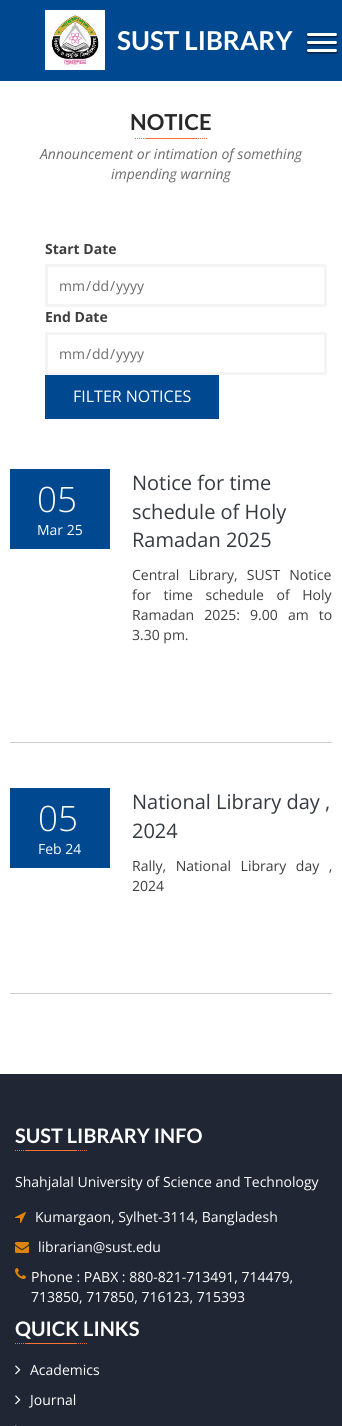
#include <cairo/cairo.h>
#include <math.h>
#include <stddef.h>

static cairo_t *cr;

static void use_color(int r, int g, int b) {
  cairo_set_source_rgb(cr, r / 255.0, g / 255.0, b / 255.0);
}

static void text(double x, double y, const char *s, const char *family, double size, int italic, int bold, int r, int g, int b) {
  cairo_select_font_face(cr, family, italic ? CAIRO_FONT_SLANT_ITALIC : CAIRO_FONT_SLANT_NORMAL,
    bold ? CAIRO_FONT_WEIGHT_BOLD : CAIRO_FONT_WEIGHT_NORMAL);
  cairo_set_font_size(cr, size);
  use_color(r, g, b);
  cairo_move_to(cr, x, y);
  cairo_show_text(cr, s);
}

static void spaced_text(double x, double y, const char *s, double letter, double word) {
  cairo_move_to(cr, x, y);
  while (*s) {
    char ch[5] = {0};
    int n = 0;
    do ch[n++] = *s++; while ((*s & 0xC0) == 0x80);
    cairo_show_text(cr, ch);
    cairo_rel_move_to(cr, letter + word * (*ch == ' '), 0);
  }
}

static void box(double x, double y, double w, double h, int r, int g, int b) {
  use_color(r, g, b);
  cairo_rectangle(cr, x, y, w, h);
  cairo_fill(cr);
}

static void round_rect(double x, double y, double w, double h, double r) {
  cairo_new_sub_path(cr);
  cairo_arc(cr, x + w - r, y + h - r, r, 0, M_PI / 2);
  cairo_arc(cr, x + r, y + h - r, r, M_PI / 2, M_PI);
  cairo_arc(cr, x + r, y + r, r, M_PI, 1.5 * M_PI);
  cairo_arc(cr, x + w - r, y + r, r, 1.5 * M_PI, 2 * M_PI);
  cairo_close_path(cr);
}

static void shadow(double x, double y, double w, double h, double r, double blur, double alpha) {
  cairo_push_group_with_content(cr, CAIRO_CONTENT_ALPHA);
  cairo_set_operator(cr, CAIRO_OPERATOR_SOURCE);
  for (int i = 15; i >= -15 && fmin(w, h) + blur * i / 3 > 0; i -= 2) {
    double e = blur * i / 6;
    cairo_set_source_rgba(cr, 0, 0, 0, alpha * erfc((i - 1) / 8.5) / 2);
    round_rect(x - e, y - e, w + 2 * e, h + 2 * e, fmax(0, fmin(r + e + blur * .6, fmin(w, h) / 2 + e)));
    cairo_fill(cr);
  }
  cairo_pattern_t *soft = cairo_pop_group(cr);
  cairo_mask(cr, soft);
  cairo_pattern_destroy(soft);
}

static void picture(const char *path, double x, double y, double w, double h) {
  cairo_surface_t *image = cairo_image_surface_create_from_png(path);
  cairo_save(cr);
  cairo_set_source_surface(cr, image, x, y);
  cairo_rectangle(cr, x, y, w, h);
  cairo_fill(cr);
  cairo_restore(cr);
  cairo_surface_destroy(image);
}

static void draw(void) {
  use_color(255, 255, 255);
  cairo_paint(cr);
  box(0, 0, 342, 81, 0, 72, 144);
  box(45, 10, 60, 60, 255, 255, 255);
  picture("img_01.png", 51, 14, 48, 53);
  use_color(0, 0, 0);
  shadow(307, 42, 30, 3, 1.5, 1, 0.7);
  use_color(255, 255, 255);
  round_rect(307, 41, 30, 3, 1.5);
  cairo_fill(cr);
  use_color(0, 0, 0);
  shadow(307, 34, 30, 3, 1.5, 1, 0.7);
  use_color(255, 255, 255);
  round_rect(307, 33, 30, 3, 1.5);
  cairo_fill(cr);
  use_color(0, 0, 0);
  shadow(307, 50, 30, 3, 1.5, 1, 0.7);
  use_color(255, 255, 255);
  round_rect(307, 49, 30, 3, 1.5);
  cairo_fill(cr);
  picture("img_02.png", 135, 138, 72, 1);
  cairo_new_path(cr);
  cairo_move_to(cr, 46.5, 265.5);
  cairo_line_to(cr, 324, 265.5);
  cairo_curve_to(cr, 325, 265.5, 325.5, 266, 325.5, 267);
  cairo_line_to(cr, 325.5, 304);
  cairo_curve_to(cr, 325.5, 305, 325, 305.5, 324, 305.5);
  cairo_line_to(cr, 46.5, 305.5);
  cairo_close_path(cr);
  use_color(244, 244, 244);
  cairo_set_line_width(cr, 3);
  cairo_stroke(cr);
  cairo_new_path(cr);
  cairo_move_to(cr, 46.5, 333.5);
  cairo_line_to(cr, 324, 333.5);
  cairo_curve_to(cr, 325, 333.5, 325.5, 334, 325.5, 335);
  cairo_line_to(cr, 325.5, 372);
  cairo_curve_to(cr, 325.5, 373, 325, 373.5, 324, 373.5);
  cairo_line_to(cr, 46.5, 373.5);
  cairo_close_path(cr);
  cairo_stroke(cr);
  box(45, 375, 174, 44, 0, 72, 144);
  box(10, 742, 322, 1, 205, 205, 205);
  box(10, 469, 100, 80, 0, 72, 144);
  box(10, 993, 322, 1, 205, 205, 205);
  box(10, 788, 100, 80, 0, 72, 144);
  box(0, 1074, 342, 352, 32, 38, 51);
  picture("img_03.png", 15, 1150, 72, 1);
  picture("img_04.png", 15, 1212, 11, 11);
  picture("img_05.png", 15, 1242, 14, 11);
  picture("img_06.png", 15, 1268, 11, 11);
  picture("img_03.png", 15, 1343, 72, 1);
  picture("img_07.png", 15, 1365, 6, 10);
  picture("img_07.png", 15, 1395, 6, 10);
  picture("img_08.png", 15, 1425, 2, 1);
  text(117, 50, "SUST LIBRARY", "Lato", 26, 0, 1, 255, 255, 255);
  text(130, 130, "NOTICE", "Lato", 22, 0, 1, 40, 40, 40);
  text(40, 159, "Announcement or intimation of something", "Open Sans", 14, 1, 0, 107, 107, 107);
  text(111, 179, "impending warning", "Open Sans", 14, 1, 0, 107, 107, 107);
  text(45, 254, "Start Date", "Open Sans", 14, 0, 1, 62, 62, 62);
  text(59, 291, "mm", "Open Sans", 14, 0, 0, 107, 107, 107);
  text(86, 291, "/", "Open Sans", 14, 0, 0, 107, 107, 107);
  text(92, 291, "dd", "Open Sans", 14, 0, 0, 107, 107, 107);
  text(110, 291, "/", "Open Sans", 14, 0, 0, 107, 107, 107);
  text(116, 291, "yyyy", "Open Sans", 14, 0, 0, 107, 107, 107);
  text(45, 322, "End Date", "Open Sans", 14, 0, 1, 62, 62, 62);
  text(59, 359, "mm", "Open Sans", 14, 0, 0, 107, 107, 107);
  text(86, 359, "/", "Open Sans", 14, 0, 0, 107, 107, 107);
  text(92, 359, "dd", "Open Sans", 14, 0, 0, 107, 107, 107);
  text(110, 359, "/", "Open Sans", 14, 0, 0, 107, 107, 107);
  text(116, 359, "yyyy", "Open Sans", 14, 0, 0, 107, 107, 107);
  text(73, 402, "FILTER NOTICES", "Open Sans", 16, 0, 0, 255, 255, 255);
  text(37, 512, "05", "Open Sans Light", 35, 0, 0, 255, 255, 255);
  text(37, 535, "Mar 25", "Open Sans", 14, 0, 0, 255, 255, 255);
  text(132, 490, "Notice for time", "Open Sans", 20, 0, 0, 52, 58, 64);
  text(132, 519, "schedule of Holy", "Open Sans", 20, 0, 0, 52, 58, 64);
  text(132, 547, "Ramadan 2025", "Open Sans", 20, 0, 0, 52, 58, 64);
  cairo_set_font_size(cr, 14);
  use_color(62, 62, 62);
  spaced_text(132, 580, "Central Library, SUST Notice", 0, 5.5);
  spaced_text(132, 600, "for time schedule of Holy", 0, 9);
  spaced_text(132, 620, "Ramadan 2025: 9.00 am to", 0, 6.5);
  text(132, 640, "3.30 pm.", "Open Sans", 14, 0, 0, 62, 62, 62);
  text(38, 831, "05", "Open Sans Light", 35, 0, 0, 255, 255, 255);
  text(38, 854, "Feb 24", "Open Sans", 14, 0, 0, 255, 255, 255);
  text(132, 809, "National Library day ,", "Open Sans", 20, 0, 0, 52, 58, 64);
  text(132, 838, "2024", "Open Sans", 20, 0, 0, 52, 58, 64);
  cairo_set_font_size(cr, 14);
  use_color(62, 62, 62);
  spaced_text(132, 871, "Rally, National Library day ,", 0, 6);
  text(132, 891, "2024", "Open Sans", 14, 0, 0, 62, 62, 62);
  text(15, 1143, "SUST LIBRARY INFO", "Lato", 20, 0, 1, 255, 255, 255);
  text(15, 1187, "Shahjalal University of Science and Technology", "Open Sans", 14, 0, 0, 255, 255, 255);
  text(35, 1222, "Kumargaon, Sylhet-3114, Bangladesh", "Open Sans", 14, 0, 0, 255, 255, 255);
  text(38, 1252, "librarian@sust.edu", "Open Sans", 14, 0, 0, 255, 255, 255);
  text(31, 1282, "Phone : PABX : 880-821-713491, 714479,", "Open Sans", 14, 0, 0, 255, 255, 255);
  text(31, 1302, "713850, 717850, 716123, 715393", "Open Sans", 14, 0, 0, 255, 255, 255);
  text(15, 1336, "QUICK LINKS", "Lato", 20, 0, 1, 255, 255, 255);
  text(30, 1375, "Academics", "Open Sans", 14, 0, 0, 255, 255, 255);
  text(30, 1405, "Journal", "Open Sans", 14, 0, 0, 255, 255, 255);
}

int main(void) {
  cairo_surface_t *surface = cairo_image_surface_create(CAIRO_FORMAT_RGB24, 342, 1426);
  cr = cairo_create(surface);
  cairo_font_options_t *options = cairo_font_options_create();
  cairo_font_options_set_hint_metrics(options, CAIRO_HINT_METRICS_OFF);
  cairo_font_options_set_hint_style(options, CAIRO_HINT_STYLE_NONE);
  cairo_set_font_options(cr, options);
  cairo_set_miter_limit(cr, 4);
  draw();
  cairo_surface_write_to_png(surface, "out.png");
  cairo_font_options_destroy(options);
  cairo_destroy(cr);
  cairo_surface_destroy(surface);
  return 0;
}
